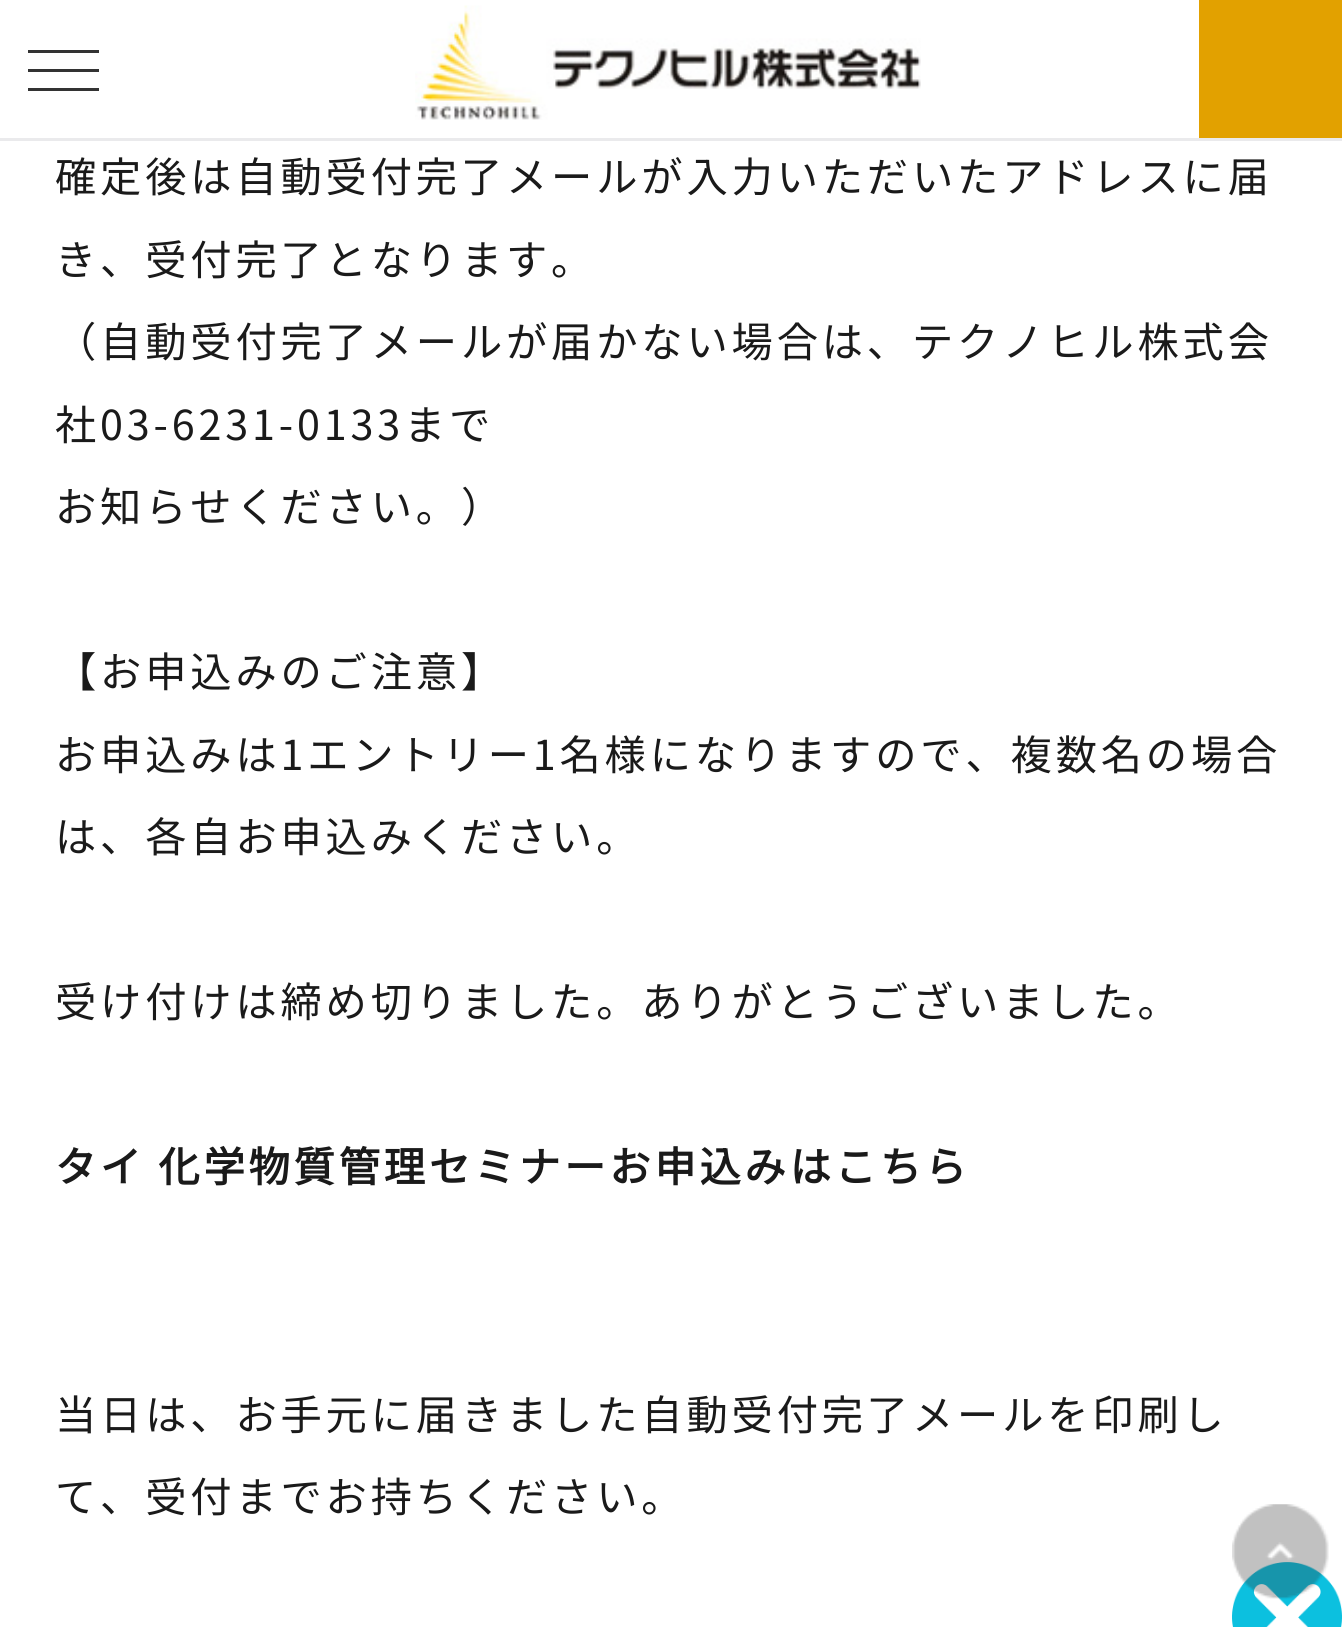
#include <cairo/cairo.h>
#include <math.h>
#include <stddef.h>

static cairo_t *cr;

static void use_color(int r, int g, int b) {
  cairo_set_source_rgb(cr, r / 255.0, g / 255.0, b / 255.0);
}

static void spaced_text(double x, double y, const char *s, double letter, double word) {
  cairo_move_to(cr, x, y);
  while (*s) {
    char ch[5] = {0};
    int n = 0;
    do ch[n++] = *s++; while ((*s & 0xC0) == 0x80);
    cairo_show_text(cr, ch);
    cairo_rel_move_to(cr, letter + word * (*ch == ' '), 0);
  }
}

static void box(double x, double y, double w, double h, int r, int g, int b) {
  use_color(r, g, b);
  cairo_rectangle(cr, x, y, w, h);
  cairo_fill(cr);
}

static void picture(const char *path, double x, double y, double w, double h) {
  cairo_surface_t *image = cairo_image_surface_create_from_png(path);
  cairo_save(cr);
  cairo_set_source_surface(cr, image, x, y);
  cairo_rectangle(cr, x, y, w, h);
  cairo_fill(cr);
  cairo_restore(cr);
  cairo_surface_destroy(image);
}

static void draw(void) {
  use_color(255, 255, 255);
  cairo_paint(cr);
  box(0, 138, 1342, 3, 234, 234, 236);
  box(28, 50, 71, 3, 51, 51, 51);
  box(28, 69, 71, 3, 51, 51, 51);
  box(28, 88, 71, 3, 51, 51, 51);
  picture("img_01.png", 415, 5, 506, 115);
  box(1199, 0, 143, 138, 226, 161, 0);
  picture("img_03.png", 1232, 1562, 110, 65);
  picture("img_02.png", 1232, 1504, 97, 95);
  cairo_select_font_face(cr, "Noto Sans JP Thin", CAIRO_FONT_SLANT_NORMAL, CAIRO_FONT_WEIGHT_NORMAL);
  cairo_set_font_size(cr, 41.25);
  use_color(26, 26, 26);
  spaced_text(55, 192, "確定後は自動受付完了メールが入力いただいたアドレスに届", 3.85, 0);
  spaced_text(55, 275, "き、受付完了となります。", 3.85, 0);
  spaced_text(55, 357, "（自動受付完了メールが届かない場合は、テクノヒル株式会", 3.85, 0);
  spaced_text(55, 440, "社03-6231-0133まで", 3.85, 0);
  spaced_text(55, 522, "お知らせください。）", 3.85, 0);
  spaced_text(55, 687, "【お申込みのご注意】", 3.85, 0);
  spaced_text(55, 770, "お申込みは1エントリー1名様になりますので、複数名の場合", 3.85, 0);
  spaced_text(55, 852, "は、各自お申込みください。", 3.85, 0);
  spaced_text(55, 1017, "受け付けは締め切りました。ありがとうございました。", 3.85, 0);
  cairo_select_font_face(cr, "Noto Sans JP", CAIRO_FONT_SLANT_NORMAL, CAIRO_FONT_WEIGHT_BOLD);
  spaced_text(55, 1182, "タイ 化学物質管理セミナーお申込みはこちら", 3.85, 0);
  cairo_select_font_face(cr, "Noto Sans JP Thin", CAIRO_FONT_SLANT_NORMAL, CAIRO_FONT_WEIGHT_NORMAL);
  spaced_text(55, 1430, "当日は、お手元に届きました自動受付完了メールを印刷し", 3.85, 0);
  spaced_text(55, 1512, "て、受付までお持ちください。", 3.85, 0);
}

int main(void) {
  cairo_surface_t *surface = cairo_image_surface_create(CAIRO_FORMAT_RGB24, 1342, 1627);
  cr = cairo_create(surface);
  cairo_font_options_t *options = cairo_font_options_create();
  cairo_font_options_set_hint_metrics(options, CAIRO_HINT_METRICS_OFF);
  cairo_font_options_set_hint_style(options, CAIRO_HINT_STYLE_NONE);
  cairo_set_font_options(cr, options);
  cairo_set_miter_limit(cr, 4);
  draw();
  cairo_surface_write_to_png(surface, "out.png");
  cairo_font_options_destroy(options);
  cairo_destroy(cr);
  cairo_surface_destroy(surface);
  return 0;
}
